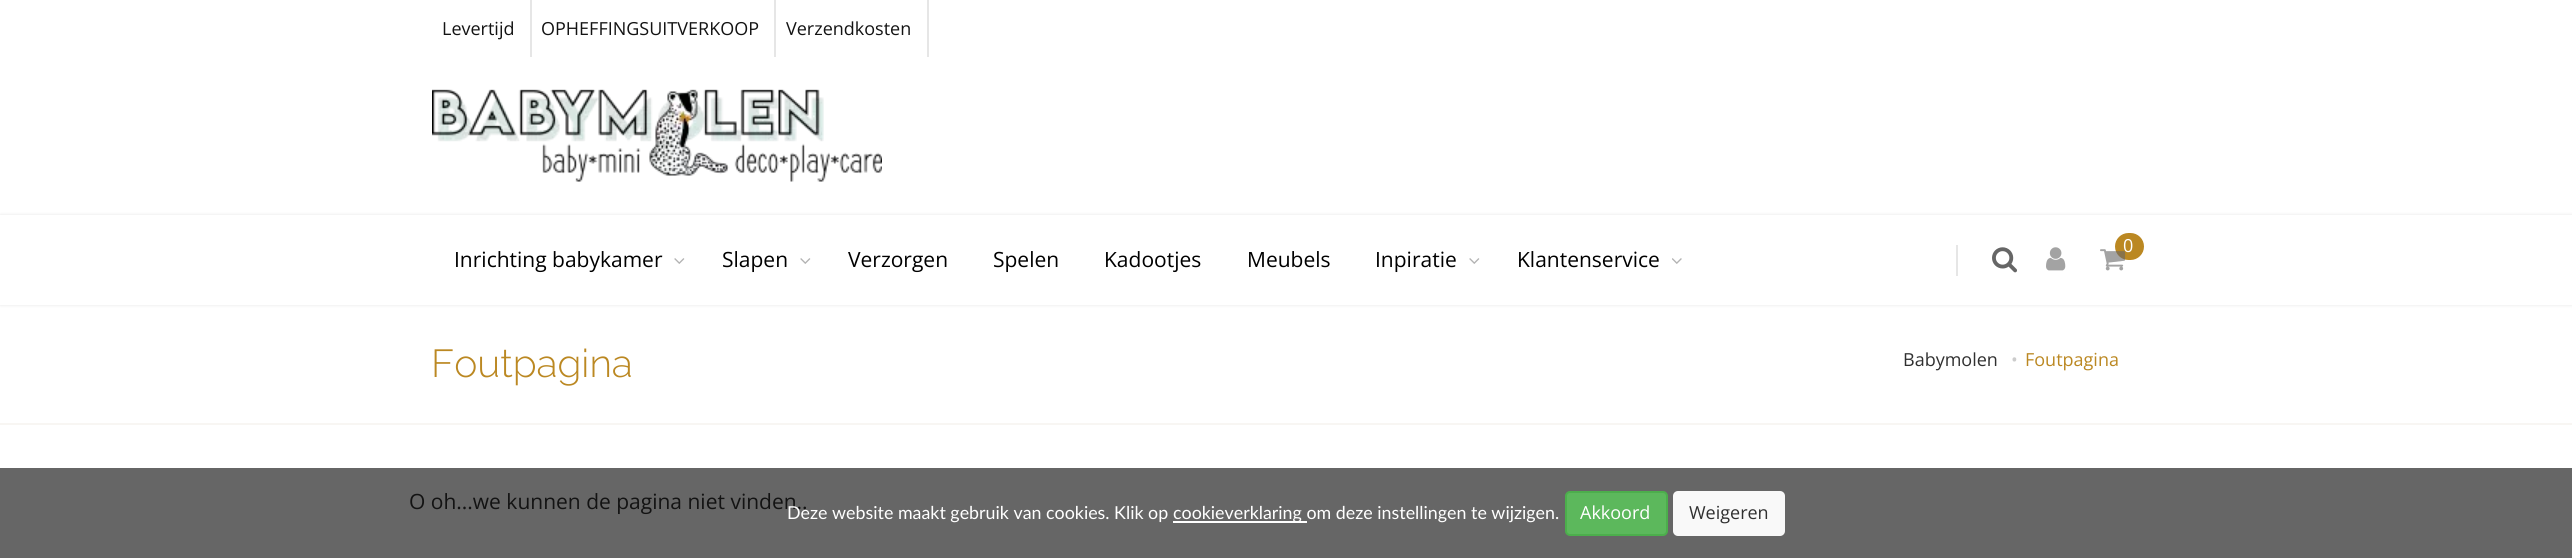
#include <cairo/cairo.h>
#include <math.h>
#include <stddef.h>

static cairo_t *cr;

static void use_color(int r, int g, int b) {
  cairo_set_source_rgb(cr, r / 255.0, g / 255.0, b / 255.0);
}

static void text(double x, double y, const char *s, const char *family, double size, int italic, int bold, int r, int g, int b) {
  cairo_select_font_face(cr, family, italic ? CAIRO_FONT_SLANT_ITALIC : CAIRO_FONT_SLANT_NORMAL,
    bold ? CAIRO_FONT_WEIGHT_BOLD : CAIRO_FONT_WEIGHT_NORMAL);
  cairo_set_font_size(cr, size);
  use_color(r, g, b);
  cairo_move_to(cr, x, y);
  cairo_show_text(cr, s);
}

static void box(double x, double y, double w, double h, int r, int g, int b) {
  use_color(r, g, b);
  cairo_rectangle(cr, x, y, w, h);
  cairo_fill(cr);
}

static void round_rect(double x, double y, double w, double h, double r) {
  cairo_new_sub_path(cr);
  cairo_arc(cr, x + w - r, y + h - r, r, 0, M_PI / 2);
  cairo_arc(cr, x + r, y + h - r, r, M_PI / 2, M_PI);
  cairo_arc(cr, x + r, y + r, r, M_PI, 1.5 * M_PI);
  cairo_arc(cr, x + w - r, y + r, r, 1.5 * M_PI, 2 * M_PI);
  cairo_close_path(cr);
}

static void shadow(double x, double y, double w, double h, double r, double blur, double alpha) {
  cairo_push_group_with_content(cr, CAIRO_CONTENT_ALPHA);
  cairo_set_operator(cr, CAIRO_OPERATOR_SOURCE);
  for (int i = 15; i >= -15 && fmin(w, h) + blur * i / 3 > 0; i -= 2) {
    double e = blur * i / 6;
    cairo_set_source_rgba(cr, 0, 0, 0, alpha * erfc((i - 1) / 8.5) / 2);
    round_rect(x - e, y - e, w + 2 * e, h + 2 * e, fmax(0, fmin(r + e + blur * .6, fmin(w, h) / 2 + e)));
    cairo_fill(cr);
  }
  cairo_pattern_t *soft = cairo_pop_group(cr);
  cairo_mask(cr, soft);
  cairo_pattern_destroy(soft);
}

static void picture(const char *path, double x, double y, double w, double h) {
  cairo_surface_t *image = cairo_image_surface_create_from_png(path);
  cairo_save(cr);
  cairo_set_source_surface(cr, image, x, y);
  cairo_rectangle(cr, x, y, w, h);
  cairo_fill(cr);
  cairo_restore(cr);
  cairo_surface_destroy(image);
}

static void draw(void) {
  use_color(255, 255, 255);
  cairo_paint(cr);
  box(0, 468, 2572, 90, 102, 102, 102);
  box(530, 0, 2, 57, 230, 230, 230);
  box(774, 0, 2, 57, 230, 230, 230);
  box(927, 0, 2, 57, 230, 230, 230);
  picture("img_01.png", 432, 89, 450, 93);
  use_color(0, 0, 0);
  shadow(0, 215, 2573, 90, 0, 1.5, 0.1);
  box(0, 215, 2572, 90, 255, 255, 255);
  box(1956, 245, 2, 31, 230, 230, 230);
  use_color(187, 136, 34);
  round_rect(2115, 233, 29, 27, 13.5);
  cairo_fill(cr);
  picture("img_03.png", 1992, 247, 25, 26);
  picture("img_04.png", 2046, 247, 20, 24);
  picture("img_05.png", 674, 258, 11, 6);
  picture("img_05.png", 800, 258, 11, 6);
  picture("img_05.png", 1469, 258, 11, 6);
  picture("img_06.png", 1672, 258, 10, 6);
  box(0, 423, 2572, 2, 248, 246, 243);
  box(1173, 521, 134, 2, 255, 255, 255);
  use_color(92, 184, 92);
  round_rect(1566, 492, 101, 43, 4);
  cairo_fill_preserve(cr);
  use_color(76, 174, 76);
  cairo_stroke(cr);
  use_color(249, 249, 249);
  round_rect(1673, 491, 112, 45, 5);
  cairo_fill(cr);
  text(442, 35, "Levertijd", "Open Sans", 18, 0, 0, 19, 19, 19);
  text(541, 35, "OPHEFFINGSUITVERKOOP", "Open Sans", 18, 0, 0, 19, 19, 19);
  text(786, 35, "Verzendkosten", "Open Sans", 18, 0, 0, 19, 19, 19);
  text(2123, 252, "0", "Open Sans", 18, 0, 0, 255, 255, 255);
  picture("img_02.png", 2100, 249, 26, 22);
  text(454, 267, "Inrichting babykamer", "Open Sans", 21, 0, 0, 0, 0, 0);
  text(722, 267, "Slapen", "Open Sans", 21, 0, 0, 0, 0, 0);
  text(848, 267, "Verzorgen", "Open Sans", 21, 0, 0, 0, 0, 0);
  text(993, 267, "Spelen", "Open Sans", 21, 0, 0, 0, 0, 0);
  text(1104, 267, "Kadootjes", "Open Sans", 21, 0, 0, 0, 0, 0);
  text(1247, 267, "Meubels", "Open Sans", 21, 0, 0, 0, 0, 0);
  text(1375, 267, "Inpiratie", "Open Sans", 21, 0, 0, 0, 0, 0);
  text(1517, 267, "Klantenservice", "Open Sans", 21, 0, 0, 0, 0, 0);
  text(431, 377, "Foutpagina", "Raleway Light", 39, 0, 0, 187, 136, 34);
  text(1903, 366, "Babymolen", "Open Sans", 18, 0, 0, 48, 48, 48);
  text(2011, 366, "•", "Open Sans", 18, 0, 0, 204, 204, 204);
  text(2025, 366, "Foutpagina", "Open Sans", 18, 0, 0, 187, 136, 34);
  text(409, 509, "O oh...we kunnen de pagina niet vinden..", "Open Sans", 21, 0, 0, 19, 19, 19);
  text(787, 519, "Deze website maakt gebruik van cookies. Klik op", "Lato", 17.85, 0, 0, 255, 255, 255);
  text(1173, 519, "cookieverklaring om deze instellingen te wijzigen.", "Lato", 17.85, 0, 0, 255, 255, 255);
  text(1580, 519, "Akkoord", "Open Sans", 18, 0, 0, 255, 255, 255);
  text(1689, 519, "Weigeren", "Open Sans", 18, 0, 0, 48, 48, 48);
}

int main(void) {
  cairo_surface_t *surface = cairo_image_surface_create(CAIRO_FORMAT_RGB24, 2572, 558);
  cr = cairo_create(surface);
  cairo_font_options_t *options = cairo_font_options_create();
  cairo_font_options_set_hint_metrics(options, CAIRO_HINT_METRICS_OFF);
  cairo_font_options_set_hint_style(options, CAIRO_HINT_STYLE_NONE);
  cairo_set_font_options(cr, options);
  cairo_set_miter_limit(cr, 4);
  draw();
  cairo_surface_write_to_png(surface, "out.png");
  cairo_font_options_destroy(options);
  cairo_destroy(cr);
  cairo_surface_destroy(surface);
  return 0;
}
